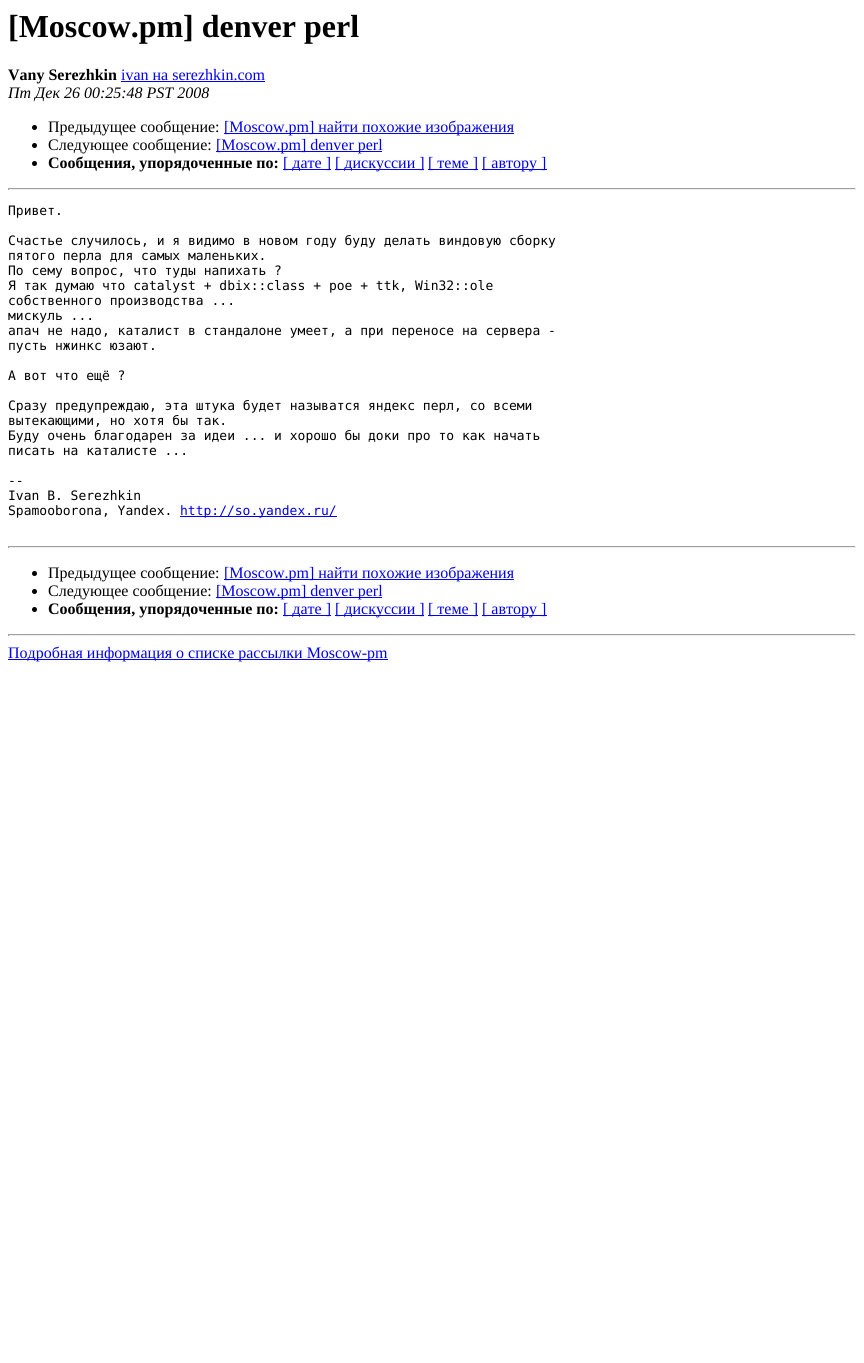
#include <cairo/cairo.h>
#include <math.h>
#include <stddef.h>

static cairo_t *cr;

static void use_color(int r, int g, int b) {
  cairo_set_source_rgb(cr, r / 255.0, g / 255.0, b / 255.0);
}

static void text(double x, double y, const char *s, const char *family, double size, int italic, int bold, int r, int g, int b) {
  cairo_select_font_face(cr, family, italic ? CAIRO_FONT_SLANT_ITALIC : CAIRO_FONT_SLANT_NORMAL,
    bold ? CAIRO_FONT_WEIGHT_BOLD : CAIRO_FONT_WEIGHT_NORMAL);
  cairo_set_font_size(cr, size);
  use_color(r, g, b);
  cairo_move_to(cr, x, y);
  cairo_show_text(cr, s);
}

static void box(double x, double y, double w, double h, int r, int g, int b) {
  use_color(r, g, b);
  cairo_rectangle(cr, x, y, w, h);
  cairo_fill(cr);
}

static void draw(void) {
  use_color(255, 255, 255);
  cairo_paint(cr);
  box(121, 81, 144, 1, 0, 0, 238);
  use_color(0, 0, 0);
  cairo_arc(cr, 34.5, 127.5, 2.5, 0, 2 * M_PI);
  cairo_fill(cr);
  box(224, 133, 290, 1, 0, 0, 238);
  use_color(0, 0, 0);
  cairo_arc(cr, 34.5, 145.5, 2.5, 0, 2 * M_PI);
  cairo_fill(cr);
  box(216, 151, 166, 1, 0, 0, 238);
  use_color(0, 0, 0);
  cairo_arc(cr, 34.5, 163.5, 2.5, 0, 2 * M_PI);
  cairo_fill(cr);
  box(283, 169, 48, 1, 0, 0, 238);
  box(335, 169, 89, 1, 0, 0, 238);
  box(428, 169, 50, 1, 0, 0, 238);
  box(482, 169, 65, 1, 0, 0, 238);
  box(8, 188, 848, 1, 159, 159, 159);
  box(855, 188, 1, 2, 238, 238, 238);
  box(8, 189, 848, 1, 238, 238, 238);
  box(8, 188, 1, 2, 159, 159, 159);
  box(180, 516, 157, 1, 0, 0, 238);
  box(8, 546, 848, 1, 159, 159, 159);
  box(855, 546, 1, 2, 238, 238, 238);
  box(8, 547, 848, 1, 238, 238, 238);
  box(8, 546, 1, 2, 159, 159, 159);
  use_color(0, 0, 0);
  cairo_arc(cr, 34.5, 573.5, 2.5, 0, 2 * M_PI);
  cairo_fill(cr);
  box(224, 579, 290, 1, 0, 0, 238);
  use_color(0, 0, 0);
  cairo_arc(cr, 34.5, 591.5, 2.5, 0, 2 * M_PI);
  cairo_fill(cr);
  box(216, 597, 166, 1, 0, 0, 238);
  use_color(0, 0, 0);
  cairo_arc(cr, 34.5, 609.5, 2.5, 0, 2 * M_PI);
  cairo_fill(cr);
  box(283, 615, 48, 1, 0, 0, 238);
  box(335, 615, 89, 1, 0, 0, 238);
  box(428, 615, 50, 1, 0, 0, 238);
  box(482, 615, 65, 1, 0, 0, 238);
  box(8, 634, 848, 1, 159, 159, 159);
  box(855, 634, 1, 2, 238, 238, 238);
  box(8, 635, 848, 1, 238, 238, 238);
  box(8, 634, 1, 2, 159, 159, 159);
  box(8, 659, 380, 1, 0, 0, 238);
  text(8, 37, "[Moscow.pm] denver perl", "Liberation Serif", 32, 0, 1, 0, 0, 0);
  text(8, 80, "Vany Serezhkin", "Liberation Serif", 16, 0, 1, 0, 0, 0);
  text(121, 80, "ivan на serezhkin.com", "Liberation Serif", 16, 0, 0, 0, 0, 238);
  text(8, 98, "Пт Дек 26 00:25:48 PST 2008", "Liberation Serif", 16, 1, 0, 0, 0, 0);
  text(48, 132, "Предыдущее сообщение:", "Liberation Serif", 16, 0, 0, 0, 0, 0);
  text(224, 132, "[Moscow.pm] найти похожие изображения", "Liberation Serif", 16, 0, 0, 0, 0, 238);
  text(48, 150, "Следующее сообщение:", "Liberation Serif", 16, 0, 0, 0, 0, 0);
  text(216, 150, "[Moscow.pm] denver perl", "Liberation Serif", 16, 0, 0, 0, 0, 238);
  text(48, 168, "Сообщения, упорядоченные по:", "Liberation Serif", 16, 0, 1, 0, 0, 0);
  text(283, 168, "[ дате ]", "Liberation Serif", 16, 0, 0, 0, 0, 238);
  text(335, 168, "[ дискуссии ]", "Liberation Serif", 16, 0, 0, 0, 0, 238);
  text(428, 168, "[ теме ]", "Liberation Serif", 16, 0, 0, 0, 0, 238);
  text(482, 168, "[ автору ]", "Liberation Serif", 16, 0, 0, 0, 0, 238);
  text(8, 215, "Привет.", "DejaVu Sans Mono", 13, 0, 0, 0, 0, 0);
  text(8, 245, "Счастье случилось, и я видимо в новом году буду делать виндовую сборку", "DejaVu Sans Mono", 13, 0, 0, 0, 0, 0);
  text(8, 260, "пятого перла для самых маленьких.", "DejaVu Sans Mono", 13, 0, 0, 0, 0, 0);
  text(8, 275, "По сему вопрос, что туды напихать ?", "DejaVu Sans Mono", 13, 0, 0, 0, 0, 0);
  text(8, 290, "Я так думаю что catalyst + dbix::class + poe + ttk, Win32::ole", "DejaVu Sans Mono", 13, 0, 0, 0, 0, 0);
  text(8, 305, "собственного производства ...", "DejaVu Sans Mono", 13, 0, 0, 0, 0, 0);
  text(8, 320, "мискуль ...", "DejaVu Sans Mono", 13, 0, 0, 0, 0, 0);
  text(8, 335, "апач не надо, каталист в стандалоне умеет, а при переносе на сервера -", "DejaVu Sans Mono", 13, 0, 0, 0, 0, 0);
  text(8, 350, "пусть нжинкс юзают.", "DejaVu Sans Mono", 13, 0, 0, 0, 0, 0);
  text(8, 380, "А вот что ещё ?", "DejaVu Sans Mono", 13, 0, 0, 0, 0, 0);
  text(8, 410, "Сразу предупреждаю, эта штука будет называтся яндекс перл, со всеми", "DejaVu Sans Mono", 13, 0, 0, 0, 0, 0);
  text(8, 425, "вытекающими, но хотя бы так.", "DejaVu Sans Mono", 13, 0, 0, 0, 0, 0);
  text(8, 440, "Буду очень благодарен за идеи ... и хорошо бы доки про то как начать", "DejaVu Sans Mono", 13, 0, 0, 0, 0, 0);
  text(8, 455, "писать на каталисте ...", "DejaVu Sans Mono", 13, 0, 0, 0, 0, 0);
  text(8, 485, "--", "DejaVu Sans Mono", 13, 0, 0, 0, 0, 0);
  text(8, 500, "Ivan B. Serezhkin", "DejaVu Sans Mono", 13, 0, 0, 0, 0, 0);
  text(8, 515, "Spamooborona, Yandex.", "DejaVu Sans Mono", 13, 0, 0, 0, 0, 0);
  text(180, 515, "http://so.yandex.ru/", "DejaVu Sans Mono", 13, 0, 0, 0, 0, 238);
  text(48, 578, "Предыдущее сообщение:", "Liberation Serif", 16, 0, 0, 0, 0, 0);
  text(224, 578, "[Moscow.pm] найти похожие изображения", "Liberation Serif", 16, 0, 0, 0, 0, 238);
  text(48, 596, "Следующее сообщение:", "Liberation Serif", 16, 0, 0, 0, 0, 0);
  text(216, 596, "[Moscow.pm] denver perl", "Liberation Serif", 16, 0, 0, 0, 0, 238);
  text(48, 614, "Сообщения, упорядоченные по:", "Liberation Serif", 16, 0, 1, 0, 0, 0);
  text(283, 614, "[ дате ]", "Liberation Serif", 16, 0, 0, 0, 0, 238);
  text(335, 614, "[ дискуссии ]", "Liberation Serif", 16, 0, 0, 0, 0, 238);
  text(428, 614, "[ теме ]", "Liberation Serif", 16, 0, 0, 0, 0, 238);
  text(482, 614, "[ автору ]", "Liberation Serif", 16, 0, 0, 0, 0, 238);
  text(8, 658, "Подробная информация о списке рассылки Moscow-pm", "Liberation Serif", 16, 0, 0, 0, 0, 238);
}

int main(void) {
  cairo_surface_t *surface = cairo_image_surface_create(CAIRO_FORMAT_RGB24, 864, 1363);
  cr = cairo_create(surface);
  cairo_font_options_t *options = cairo_font_options_create();
  cairo_font_options_set_hint_metrics(options, CAIRO_HINT_METRICS_OFF);
  cairo_font_options_set_hint_style(options, CAIRO_HINT_STYLE_NONE);
  cairo_set_font_options(cr, options);
  cairo_set_miter_limit(cr, 4);
  draw();
  cairo_surface_write_to_png(surface, "out.png");
  cairo_font_options_destroy(options);
  cairo_destroy(cr);
  cairo_surface_destroy(surface);
  return 0;
}
